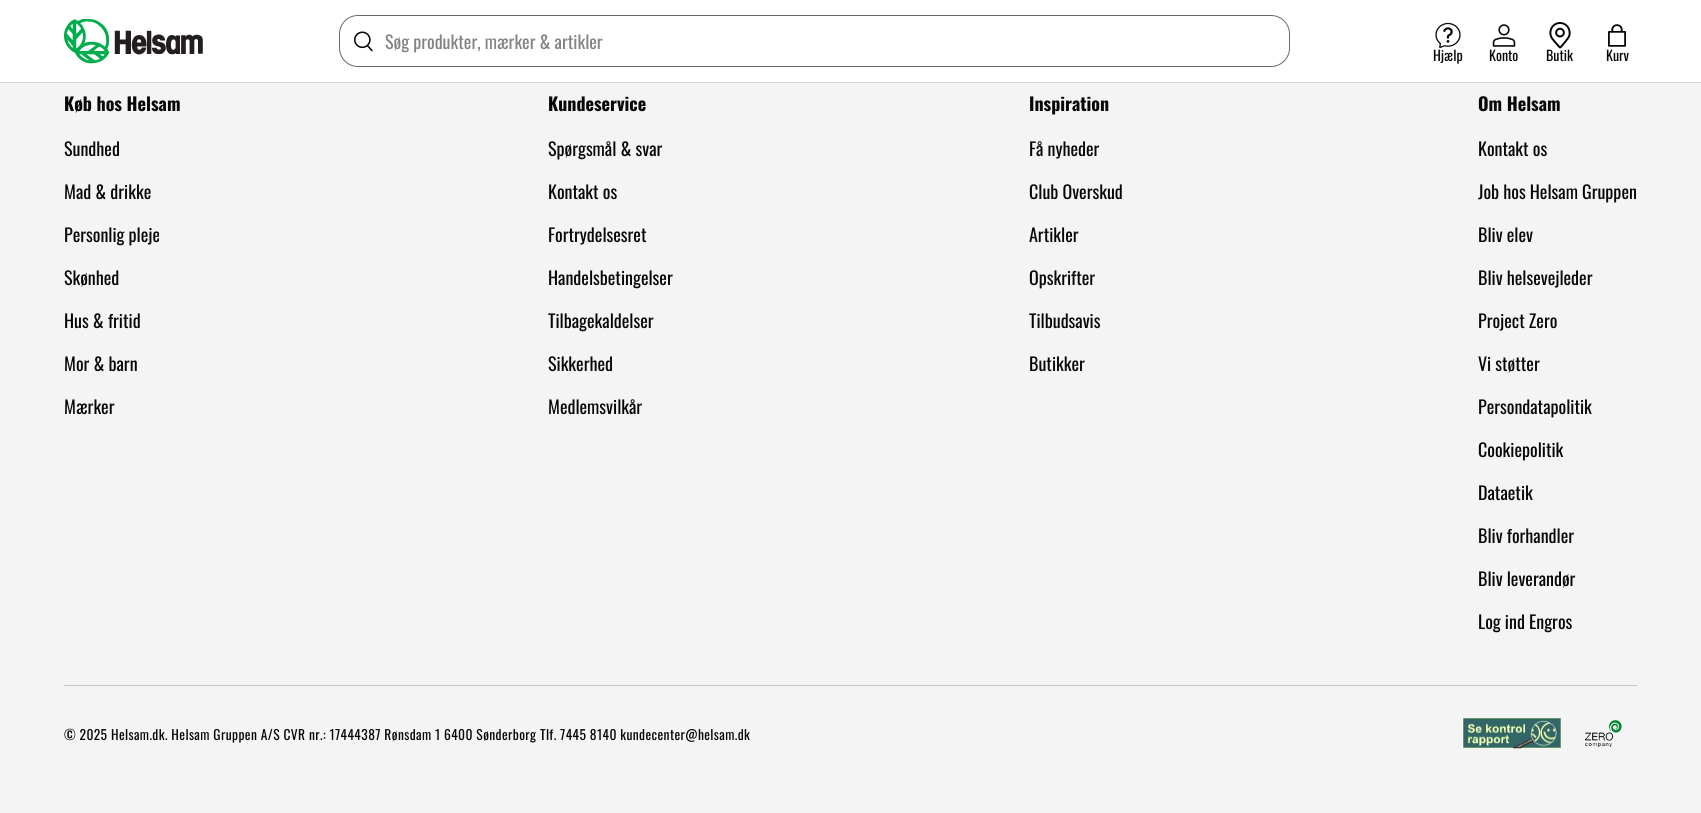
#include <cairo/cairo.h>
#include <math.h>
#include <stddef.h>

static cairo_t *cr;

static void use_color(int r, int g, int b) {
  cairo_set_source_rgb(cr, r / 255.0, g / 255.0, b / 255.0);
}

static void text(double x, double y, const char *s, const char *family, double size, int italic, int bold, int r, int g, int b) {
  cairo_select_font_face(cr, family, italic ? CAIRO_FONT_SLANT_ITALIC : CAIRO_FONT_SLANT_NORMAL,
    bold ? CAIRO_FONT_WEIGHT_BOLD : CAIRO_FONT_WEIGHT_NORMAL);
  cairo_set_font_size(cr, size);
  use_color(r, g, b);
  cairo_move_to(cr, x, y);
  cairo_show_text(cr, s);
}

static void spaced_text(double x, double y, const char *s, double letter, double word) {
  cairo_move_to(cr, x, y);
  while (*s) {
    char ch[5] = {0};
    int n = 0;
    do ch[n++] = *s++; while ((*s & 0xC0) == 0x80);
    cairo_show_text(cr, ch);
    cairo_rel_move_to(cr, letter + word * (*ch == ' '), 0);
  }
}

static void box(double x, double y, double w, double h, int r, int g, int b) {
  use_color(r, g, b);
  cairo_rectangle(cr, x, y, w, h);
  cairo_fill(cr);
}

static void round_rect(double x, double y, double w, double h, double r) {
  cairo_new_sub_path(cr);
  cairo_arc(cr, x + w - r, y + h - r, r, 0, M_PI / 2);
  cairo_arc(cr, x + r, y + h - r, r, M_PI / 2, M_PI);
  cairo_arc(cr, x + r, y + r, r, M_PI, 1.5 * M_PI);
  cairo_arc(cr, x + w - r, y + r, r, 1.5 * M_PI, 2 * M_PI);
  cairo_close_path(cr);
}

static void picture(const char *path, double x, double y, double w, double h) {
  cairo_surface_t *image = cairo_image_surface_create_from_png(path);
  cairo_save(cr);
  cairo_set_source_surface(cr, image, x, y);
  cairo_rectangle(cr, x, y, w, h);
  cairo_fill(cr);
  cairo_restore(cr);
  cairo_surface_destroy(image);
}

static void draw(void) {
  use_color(244, 244, 244);
  cairo_paint(cr);
  box(0, 0, 1701, 82, 255, 255, 255);
  box(0, 82, 1701, 1, 218, 218, 218);
  picture("img_01.png", 64, 19, 139, 45);
  round_rect(339.5, 15.5, 950, 51, 18.5);
  use_color(106, 106, 106);
  cairo_set_line_width(cr, 1);
  cairo_stroke(cr);
  picture("img_02.png", 354, 31, 19, 21);
  picture("img_03.png", 1435, 22, 26, 27);
  picture("img_04.png", 1492, 24, 24, 23);
  picture("img_05.png", 1549, 22, 22, 27);
  picture("img_06.png", 1608, 24, 18, 23);
  box(64, 685, 1573, 1, 197, 197, 197);
  picture("img_07.png", 1462, 718, 99, 31);
  picture("img_08.png", 1585, 720, 37, 27);
  text(385, 49, "Søg produkter, mærker & artikler", "Oswald", 18, 0, 0, 131, 131, 131);
  text(1433, 61, "Hjælp", "Oswald", 14, 0, 0, 7, 7, 7);
  text(1489, 61, "Konto", "Oswald", 14, 0, 0, 7, 7, 7);
  text(1546, 61, "Butik", "Oswald", 14, 0, 0, 7, 7, 7);
  text(1606, 61, "Kurv", "Oswald", 14, 0, 0, 7, 7, 7);
  text(64, 111, "Køb hos Helsam", "Oswald", 18, 0, 1, 7, 7, 7);
  text(64, 156, "Sundhed", "Oswald", 18, 0, 0, 7, 7, 7);
  text(64, 199, "Mad & drikke", "Oswald", 18, 0, 0, 7, 7, 7);
  text(64, 242, "Personlig pleje", "Oswald", 18, 0, 0, 7, 7, 7);
  text(64, 285, "Skønhed", "Oswald", 18, 0, 0, 7, 7, 7);
  text(64, 328, "Hus & fritid", "Oswald", 18, 0, 0, 7, 7, 7);
  text(64, 371, "Mor & barn", "Oswald", 18, 0, 0, 7, 7, 7);
  text(64, 414, "Mærker", "Oswald", 18, 0, 0, 7, 7, 7);
  text(548, 111, "Kundeservice", "Oswald", 18, 0, 1, 7, 7, 7);
  text(548, 156, "Spørgsmål & svar", "Oswald", 18, 0, 0, 7, 7, 7);
  text(548, 199, "Kontakt os", "Oswald", 18, 0, 0, 7, 7, 7);
  text(548, 242, "Fortrydelsesret", "Oswald", 18, 0, 0, 7, 7, 7);
  text(548, 285, "Handelsbetingelser", "Oswald", 18, 0, 0, 7, 7, 7);
  text(548, 328, "Tilbagekaldelser", "Oswald", 18, 0, 0, 7, 7, 7);
  text(548, 371, "Sikkerhed", "Oswald", 18, 0, 0, 7, 7, 7);
  text(548, 414, "Medlemsvilkår", "Oswald", 18, 0, 0, 7, 7, 7);
  text(1029, 111, "Inspiration", "Oswald", 18, 0, 1, 7, 7, 7);
  text(1029, 156, "Få nyheder", "Oswald", 18, 0, 0, 7, 7, 7);
  text(1029, 199, "Club Overskud", "Oswald", 18, 0, 0, 7, 7, 7);
  text(1029, 242, "Artikler", "Oswald", 18, 0, 0, 7, 7, 7);
  text(1029, 285, "Opskrifter", "Oswald", 18, 0, 0, 7, 7, 7);
  text(1029, 328, "Tilbudsavis", "Oswald", 18, 0, 0, 7, 7, 7);
  text(1029, 371, "Butikker", "Oswald", 18, 0, 0, 7, 7, 7);
  text(1478, 111, "Om Helsam", "Oswald", 18, 0, 1, 7, 7, 7);
  text(1478, 156, "Kontakt os", "Oswald", 18, 0, 0, 7, 7, 7);
  text(1478, 199, "Job hos Helsam Gruppen", "Oswald", 18, 0, 0, 7, 7, 7);
  text(1478, 242, "Bliv elev", "Oswald", 18, 0, 0, 7, 7, 7);
  text(1478, 285, "Bliv helsevejleder", "Oswald", 18, 0, 0, 7, 7, 7);
  text(1478, 328, "Project Zero", "Oswald", 18, 0, 0, 7, 7, 7);
  text(1478, 371, "Vi støtter", "Oswald", 18, 0, 0, 7, 7, 7);
  text(1478, 414, "Persondatapolitik", "Oswald", 18, 0, 0, 7, 7, 7);
  text(1478, 457, "Cookiepolitik", "Oswald", 18, 0, 0, 7, 7, 7);
  text(1478, 500, "Dataetik", "Oswald", 18, 0, 0, 7, 7, 7);
  text(1478, 543, "Bliv forhandler", "Oswald", 18, 0, 0, 7, 7, 7);
  text(1478, 586, "Bliv leverandør", "Oswald", 18, 0, 0, 7, 7, 7);
  text(1478, 629, "Log ind Engros", "Oswald", 18, 0, 0, 7, 7, 7);
  cairo_set_font_size(cr, 13.5);
  spaced_text(64, 740, "© 2025 Helsam.dk. Helsam Gruppen A/S CVR nr.: 17444387 Rønsdam 1 6400 Sønderborg Tlf. 7445 8140 kundecenter@helsam.dk", 0.4, 0);
}

int main(void) {
  cairo_surface_t *surface = cairo_image_surface_create(CAIRO_FORMAT_RGB24, 1701, 813);
  cr = cairo_create(surface);
  cairo_font_options_t *options = cairo_font_options_create();
  cairo_font_options_set_hint_metrics(options, CAIRO_HINT_METRICS_OFF);
  cairo_font_options_set_hint_style(options, CAIRO_HINT_STYLE_NONE);
  cairo_set_font_options(cr, options);
  cairo_set_miter_limit(cr, 4);
  draw();
  cairo_surface_write_to_png(surface, "out.png");
  cairo_font_options_destroy(options);
  cairo_destroy(cr);
  cairo_surface_destroy(surface);
  return 0;
}
